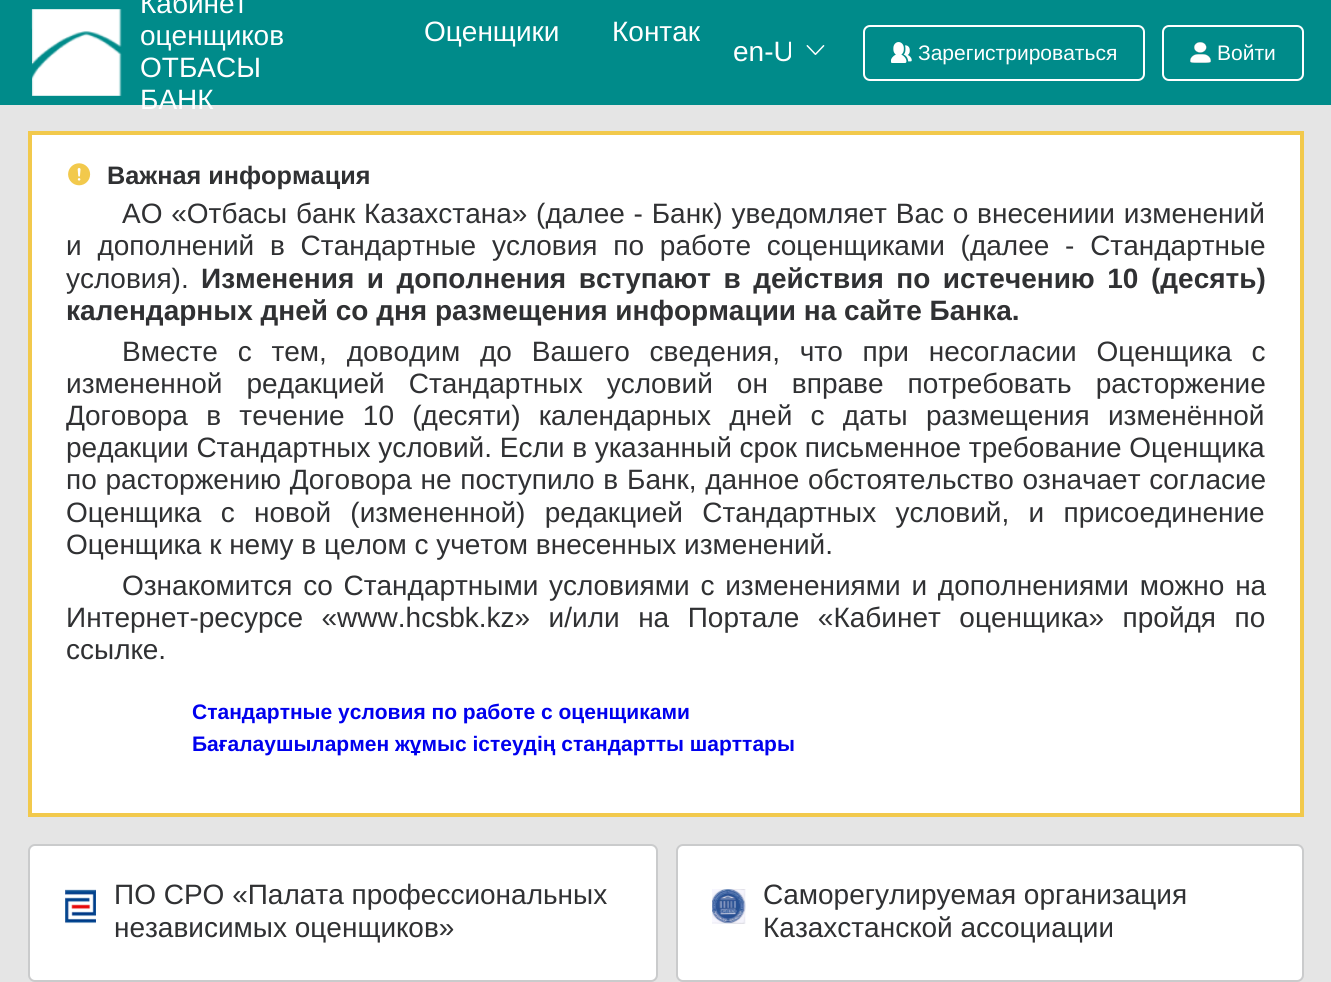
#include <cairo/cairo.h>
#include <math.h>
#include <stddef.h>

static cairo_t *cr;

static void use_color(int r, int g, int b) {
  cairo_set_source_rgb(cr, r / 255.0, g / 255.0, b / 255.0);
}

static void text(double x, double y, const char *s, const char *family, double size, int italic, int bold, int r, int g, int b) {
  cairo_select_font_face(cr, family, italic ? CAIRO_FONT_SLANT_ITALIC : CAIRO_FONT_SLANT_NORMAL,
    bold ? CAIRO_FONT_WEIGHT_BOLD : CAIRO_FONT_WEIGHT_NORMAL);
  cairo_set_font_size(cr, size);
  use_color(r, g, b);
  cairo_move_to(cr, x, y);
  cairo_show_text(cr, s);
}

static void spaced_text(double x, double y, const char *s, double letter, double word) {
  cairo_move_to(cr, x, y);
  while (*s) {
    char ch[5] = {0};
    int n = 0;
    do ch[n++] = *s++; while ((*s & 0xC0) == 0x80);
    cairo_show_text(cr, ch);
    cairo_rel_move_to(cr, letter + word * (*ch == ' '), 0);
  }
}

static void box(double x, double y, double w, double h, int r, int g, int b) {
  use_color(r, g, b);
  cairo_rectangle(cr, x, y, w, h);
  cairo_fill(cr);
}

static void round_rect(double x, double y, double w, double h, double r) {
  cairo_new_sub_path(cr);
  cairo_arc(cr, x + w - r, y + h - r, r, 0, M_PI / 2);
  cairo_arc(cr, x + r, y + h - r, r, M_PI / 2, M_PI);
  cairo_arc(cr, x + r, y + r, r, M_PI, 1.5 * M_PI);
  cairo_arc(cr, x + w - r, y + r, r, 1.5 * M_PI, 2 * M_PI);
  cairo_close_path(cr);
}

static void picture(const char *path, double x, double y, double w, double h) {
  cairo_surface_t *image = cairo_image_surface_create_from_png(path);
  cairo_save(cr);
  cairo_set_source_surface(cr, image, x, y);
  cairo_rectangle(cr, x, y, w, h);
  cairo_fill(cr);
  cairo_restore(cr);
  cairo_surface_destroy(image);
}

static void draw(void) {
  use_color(229, 229, 229);
  cairo_paint(cr);
  box(0, 0, 1331, 105, 0, 139, 138);
  picture("img_01.png", 31, 9, 91, 87);
  picture("img_02.png", 806, 45, 19, 10);
  round_rect(864, 26, 280, 54, 6);
  use_color(255, 255, 255);
  cairo_stroke(cr);
  picture("img_03.png", 891, 42, 21, 21);
  round_rect(1163, 26, 140, 54, 6);
  cairo_stroke(cr);
  picture("img_04.png", 1190, 42, 21, 21);
  cairo_rectangle(cr, 30, 133, 1272, 682);
  cairo_fill_preserve(cr);
  use_color(242, 201, 76);
  cairo_set_line_width(cr, 4);
  cairo_stroke(cr);
  picture("img_05.png", 68, 163, 23, 23);
  use_color(255, 255, 255);
  round_rect(29, 845, 628, 136, 6);
  cairo_fill_preserve(cr);
  use_color(202, 203, 204);
  cairo_set_line_width(cr, 2);
  cairo_stroke(cr);
  picture("img_06.png", 65, 889, 31, 35);
  use_color(255, 255, 255);
  round_rect(677, 845, 626, 136, 6);
  cairo_fill_preserve(cr);
  use_color(202, 203, 204);
  cairo_stroke(cr);
  picture("img_07.png", 712, 889, 34, 35);
  text(140, 13, "Кабинет", "Liberation Sans", 28, 0, 0, 255, 255, 255);
  text(140, 45, "оценщиков", "Liberation Sans", 28, 0, 0, 255, 255, 255);
  text(140, 77, "ОТБАСЫ", "Liberation Sans", 28, 0, 0, 255, 255, 255);
  text(140, 109, "БАНК", "Liberation Sans", 28, 0, 0, 255, 255, 255);
  text(424, 41, "Оценщики", "Liberation Sans", 28, 0, 0, 255, 255, 255);
  text(612, 41, "Контак", "Liberation Sans", 28, 0, 0, 255, 255, 255);
  cairo_save(cr);
  cairo_rectangle(cr, 733, 26, 58, 53);
  cairo_clip(cr);
  text(733, 61, "en-U", "Liberation Sans", 28, 0, 0, 255, 255, 255);
  cairo_restore(cr);
  text(918, 60, "Зарегистрироваться", "Liberation Sans", 21, 0, 0, 255, 255, 255);
  text(1217, 60, "Войти", "Liberation Sans", 21, 0, 0, 255, 255, 255);
  text(107, 184, "Важная информация", "Liberation Sans", 25.25, 0, 1, 48, 49, 51);
  cairo_select_font_face(cr, "Liberation Sans", CAIRO_FONT_SLANT_NORMAL, CAIRO_FONT_WEIGHT_NORMAL);
  cairo_set_font_size(cr, 28);
  spaced_text(122, 223, "АО «Отбасы банк Казахстана» (далее - Банк) уведомляет Вас о внесениии изменений", 0, 1);
  spaced_text(66, 255, "и дополнений в Стандартные условия по работе соценщиками (далее - Стандартные", 0, 8);
  text(66, 288, "условия).", "Liberation Sans", 28, 0, 0, 48, 49, 51);
  cairo_select_font_face(cr, "Liberation Sans", CAIRO_FONT_SLANT_NORMAL, CAIRO_FONT_WEIGHT_BOLD);
  spaced_text(201, 288, "Изменения и дополнения вступают в действия по истечению 10 (десять)", 0, 4.75);
  text(66, 320, "календарных дней со дня размещения информации на сайте Банка.", "Liberation Sans", 28, 0, 1, 48, 49, 51);
  cairo_select_font_face(cr, "Liberation Sans", CAIRO_FONT_SLANT_NORMAL, CAIRO_FONT_WEIGHT_NORMAL);
  spaced_text(122, 361, "Вместе с тем, доводим до Вашего сведения, что при несогласии Оценщика с", 0, 12);
  spaced_text(66, 393, "измененной редакцией Стандартных условий он вправе потребовать расторжение", 0, 16.25);
  spaced_text(66, 425, "Договора в течение 10 (десяти) календарных дней с даты размещения изменённой", 0, 10.5);
  text(66, 457, "редакции Стандартных условий. Если в указанный срок письменное требование Оценщика", "Liberation Sans", 28, 0, 0, 48, 49, 51);
  spaced_text(66, 489, "по расторжению Договора не поступило в Банк, данное обстоятельство означает согласие", 0, 1);
  spaced_text(66, 522, "Оценщика с новой (измененной) редакцией Стандартных условий, и присоединение", 0, 11.5);
  text(66, 554, "Оценщика к нему в целом с учетом внесенных изменений.", "Liberation Sans", 28, 0, 0, 48, 49, 51);
  spaced_text(122, 595, "Ознакомится со Стандартными условиями с изменениями и дополнениями можно на", 0, 3);
  spaced_text(66, 627, "Интернет-ресурсе «www.hcsbk.kz» и/или на Портале «Кабинет оценщика» пройдя по", 0, 10.75);
  text(66, 659, "ссылке.", "Liberation Sans", 28, 0, 0, 48, 49, 51);
  text(192, 719, "Стандартные условия по работе с оценщиками", "Liberation Sans", 21, 0, 1, 0, 0, 238);
  text(192, 751, "Бағалаушылармен жұмыс істеудің стандартты шарттары", "Liberation Sans", 21, 0, 1, 0, 0, 238);
  text(114, 904, "ПО СРО «Палата профессиональных", "Liberation Sans", 28, 0, 0, 48, 49, 51);
  text(114, 937, "независимых оценщиков»", "Liberation Sans", 28, 0, 0, 48, 49, 51);
  text(763, 904, "Саморегулируемая организация", "Liberation Sans", 28, 0, 0, 48, 49, 51);
  text(763, 937, "Казахстанской ассоциации", "Liberation Sans", 28, 0, 0, 48, 49, 51);
}

int main(void) {
  cairo_surface_t *surface = cairo_image_surface_create(CAIRO_FORMAT_RGB24, 1331, 982);
  cr = cairo_create(surface);
  cairo_font_options_t *options = cairo_font_options_create();
  cairo_font_options_set_hint_metrics(options, CAIRO_HINT_METRICS_OFF);
  cairo_font_options_set_hint_style(options, CAIRO_HINT_STYLE_NONE);
  cairo_set_font_options(cr, options);
  cairo_set_miter_limit(cr, 4);
  draw();
  cairo_surface_write_to_png(surface, "out.png");
  cairo_font_options_destroy(options);
  cairo_destroy(cr);
  cairo_surface_destroy(surface);
  return 0;
}
